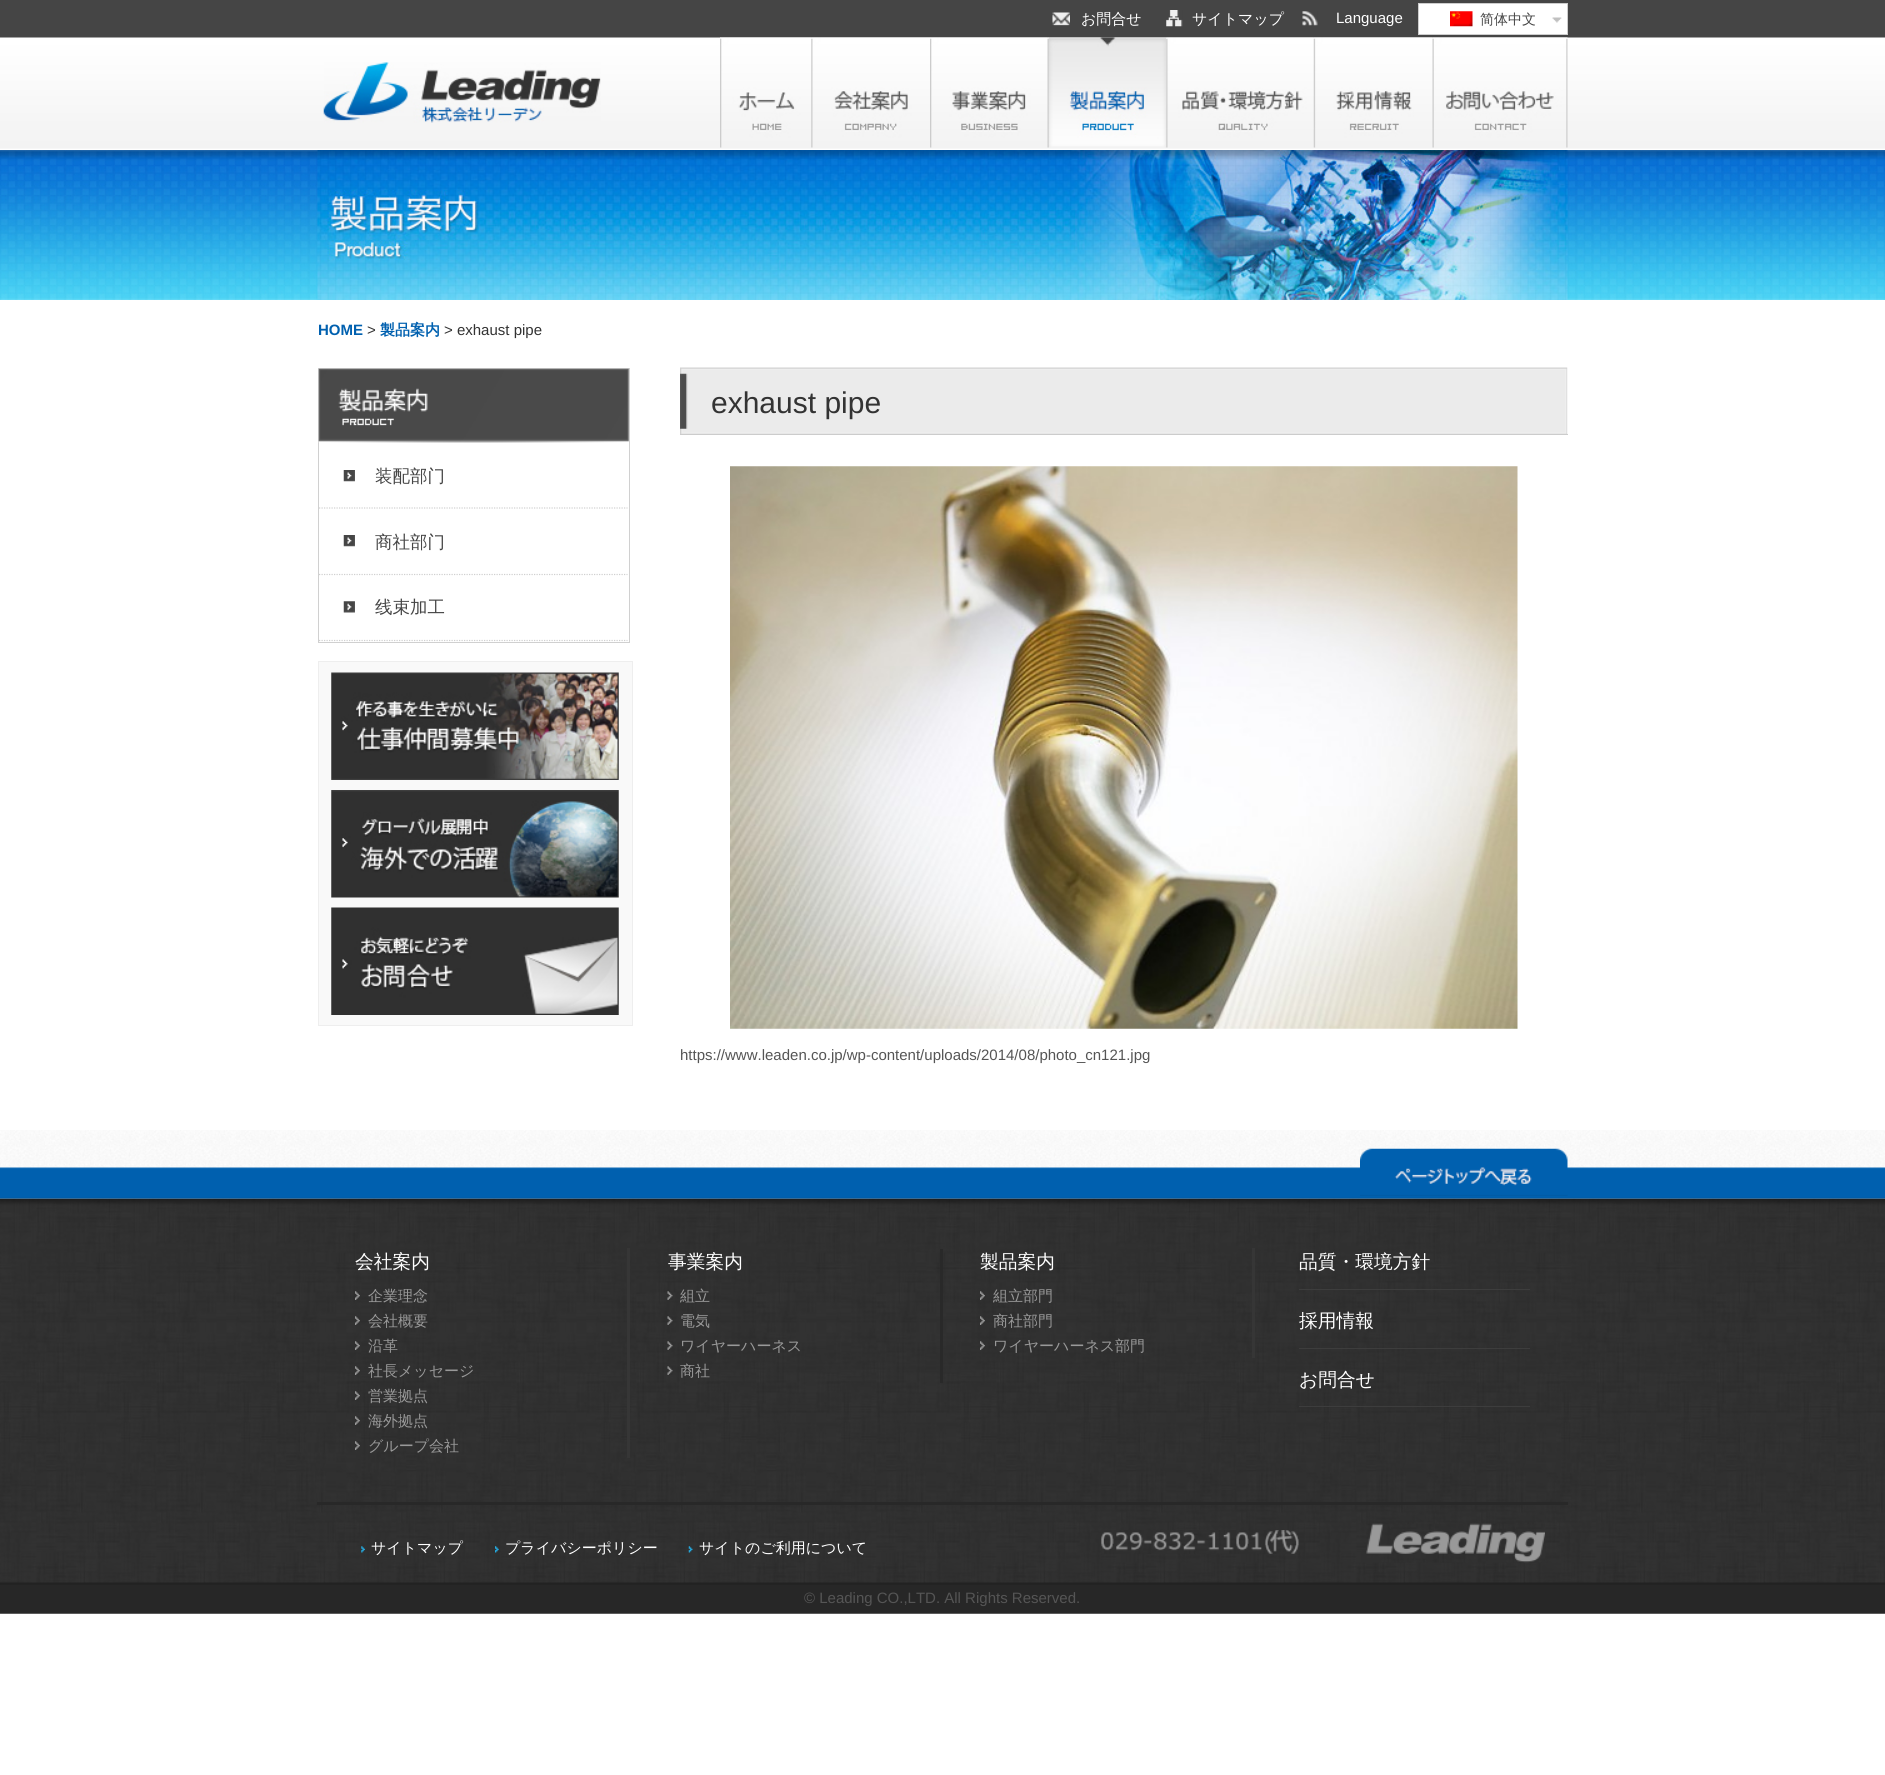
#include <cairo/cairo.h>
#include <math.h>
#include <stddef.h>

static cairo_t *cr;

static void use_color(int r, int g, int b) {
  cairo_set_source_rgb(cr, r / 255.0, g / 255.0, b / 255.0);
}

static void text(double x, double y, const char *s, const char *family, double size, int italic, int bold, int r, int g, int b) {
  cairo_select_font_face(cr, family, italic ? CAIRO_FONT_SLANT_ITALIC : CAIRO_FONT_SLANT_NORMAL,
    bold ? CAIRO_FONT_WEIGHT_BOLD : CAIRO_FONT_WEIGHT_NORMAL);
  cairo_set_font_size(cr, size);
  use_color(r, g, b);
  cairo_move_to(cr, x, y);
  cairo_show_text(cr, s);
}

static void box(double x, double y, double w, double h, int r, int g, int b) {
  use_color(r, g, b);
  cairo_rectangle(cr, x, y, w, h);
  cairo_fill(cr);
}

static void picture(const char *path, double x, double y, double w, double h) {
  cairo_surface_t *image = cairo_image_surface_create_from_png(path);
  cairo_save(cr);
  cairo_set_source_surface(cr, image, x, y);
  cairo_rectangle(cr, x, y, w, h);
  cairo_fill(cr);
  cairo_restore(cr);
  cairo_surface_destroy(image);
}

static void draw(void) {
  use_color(255, 255, 255);
  cairo_paint(cr);
  box(0, 0, 1885, 38, 69, 69, 69);
  picture("img_01.png", 1052, 12, 18, 14);
  picture("img_02.png", 1166, 10, 17, 17);
  picture("img_03.png", 1302, 11, 16, 15);
  box(1419, 4, 148, 30, 255, 255, 255);
  picture("img_04.png", 1552, 17, 10, 6);
  cairo_rectangle(cr, 1418.5, 3.5, 149, 31);
  use_color(205, 205, 205);
  cairo_set_line_width(cr, 1);
  cairo_stroke(cr);
  picture("img_05.png", 1450, 11, 23, 16);
  picture("img_06.png", 0, 37, 1885, 112);
  picture("img_07.png", 323, 62, 278, 61);
  picture("img_08.png", 720, 37, 92, 111);
  picture("img_09.png", 811, 37, 119, 111);
  picture("img_10.png", 930, 37, 118, 111);
  picture("img_11.png", 1047, 37, 120, 111);
  picture("img_12.png", 1166, 37, 148, 111);
  picture("img_13.png", 1313, 37, 120, 111);
  picture("img_14.png", 1432, 37, 136, 111);
  picture("img_15.png", 0, 150, 1885, 150);
  picture("img_16.png", 317, 150, 1251, 150);
  cairo_rectangle(cr, 318.5, 368.5, 311, 274);
  use_color(208, 208, 208);
  cairo_stroke(cr);
  picture("img_17.png", 318, 368, 311, 75);
  picture("img_18.png", 343, 470, 12, 12);
  cairo_new_path(cr);
  cairo_move_to(cr, 319, 508);
  cairo_line_to(cr, 627.5, 508);
  cairo_set_line_width(cr, 1.2);
  cairo_set_dash(cr, (double[]){1.25, 1.25}, 2, 0);
  cairo_stroke(cr);
  picture("img_18.png", 343, 535, 12, 12);
  cairo_new_path(cr);
  cairo_move_to(cr, 319, 574.5);
  cairo_line_to(cr, 627.5, 574.5);
  cairo_stroke(cr);
  picture("img_19.png", 343, 601, 12, 12);
  cairo_new_path(cr);
  cairo_move_to(cr, 319, 640.5);
  cairo_line_to(cr, 627.5, 640.5);
  cairo_stroke(cr);
  use_color(249, 249, 249);
  cairo_rectangle(cr, 318.5, 661.5, 314, 364);
  cairo_fill_preserve(cr);
  use_color(238, 238, 238);
  cairo_set_line_width(cr, 1);
  cairo_set_dash(cr, NULL, 0, 0);
  cairo_stroke(cr);
  picture("img_20.png", 331, 672, 288, 108);
  picture("img_21.png", 331, 790, 288, 108);
  picture("img_22.png", 331, 907, 288, 108);
  picture("img_23.png", 680, 367, 888, 67);
  box(680, 434, 888, 1, 204, 204, 204);
  picture("img_24.png", 730, 466, 788, 563);
  picture("img_25.png", 0, 1130, 1885, 69);
  picture("img_26.png", 1360, 1148, 208, 48);
  picture("img_27.png", 0, 1198, 1885, 416);
  box(627, 1248, 3, 210, 54, 54, 54);
  picture("img_28.png", 355, 1291, 5, 9);
  picture("img_29.png", 355, 1316, 5, 9);
  picture("img_29.png", 355, 1341, 5, 9);
  picture("img_29.png", 355, 1366, 5, 9);
  picture("img_29.png", 355, 1391, 5, 9);
  picture("img_30.png", 355, 1416, 5, 9);
  picture("img_28.png", 355, 1441, 5, 9);
  box(940, 1249, 3, 134, 41, 41, 41);
  picture("img_31.png", 667, 1291, 6, 9);
  picture("img_32.png", 667, 1316, 6, 9);
  picture("img_33.png", 667, 1341, 6, 9);
  picture("img_34.png", 667, 1366, 6, 9);
  box(1252, 1248, 3, 110, 54, 54, 54);
  picture("img_35.png", 980, 1291, 5, 9);
  picture("img_35.png", 980, 1316, 5, 9);
  picture("img_35.png", 980, 1341, 5, 9);
  box(1299, 1289, 231, 1, 61, 61, 61);
  box(1299, 1348, 231, 1, 61, 61, 61);
  box(1299, 1406, 231, 1, 61, 61, 61);
  box(317, 1502, 1251, 3, 40, 40, 40);
  picture("img_36.png", 361, 1546, 4, 7);
  picture("img_37.png", 495, 1546, 4, 7);
  picture("img_38.png", 688, 1546, 5, 7);
  picture("img_39.png", 1101, 1530, 198, 24);
  picture("img_40.png", 1366, 1523, 179, 40);
  text(1081, 24, "お問合せ", "WenQuanYi Zen Hei Medium", 15, 0, 0, 255, 255, 255);
  text(1192, 24, "サイトマップ", "WenQuanYi Zen Hei Medium", 15, 0, 0, 255, 255, 255);
  text(1336, 23, "Language", "Liberation Sans", 15, 0, 0, 255, 255, 255);
  text(1480, 24, "简体中文", "WenQuanYi Zen Hei Medium", 14, 0, 0, 69, 69, 69);
  text(318, 335, "HOME", "Liberation Sans", 15, 0, 1, 0, 96, 175);
  text(367, 335, ">", "Liberation Sans", 15, 0, 0, 51, 51, 51);
  text(380, 335, "製品案内", "WenQuanYi Zen Hei", 15, 0, 1, 0, 96, 175);
  text(444, 335, "> exhaust pipe", "Liberation Sans", 15, 0, 0, 51, 51, 51);
  text(375, 482, "装配部门", "WenQuanYi Zen Hei Medium", 17.5, 0, 0, 69, 69, 69);
  text(375, 548, "商社部门", "WenQuanYi Zen Hei Medium", 17.5, 0, 0, 69, 69, 69);
  text(375, 613, "线束加工", "WenQuanYi Zen Hei Medium", 17.5, 0, 0, 69, 69, 69);
  text(711, 413, "exhaust pipe", "Liberation Sans", 30, 0, 0, 51, 51, 51);
  text(680, 1060, "https://www.leaden.co.jp/wp-content/uploads/2014/08/photo_cn121.jpg", "Liberation Sans", 15, 0, 0, 85, 85, 85);
  text(355, 1268, "会社案内", "WenQuanYi Zen Hei Medium", 18.75, 0, 0, 255, 255, 255);
  text(368, 1301, "企業理念", "WenQuanYi Zen Hei Medium", 15, 0, 0, 153, 153, 153);
  text(368, 1326, "会社概要", "WenQuanYi Zen Hei Medium", 15, 0, 0, 153, 153, 153);
  text(368, 1351, "沿革", "WenQuanYi Zen Hei Medium", 15, 0, 0, 153, 153, 153);
  text(368, 1376, "社長メッセージ", "WenQuanYi Zen Hei Medium", 15, 0, 0, 153, 153, 153);
  text(368, 1401, "営業拠点", "WenQuanYi Zen Hei Medium", 15, 0, 0, 153, 153, 153);
  text(368, 1426, "海外拠点", "WenQuanYi Zen Hei Medium", 15, 0, 0, 153, 153, 153);
  text(368, 1451, "グループ会社", "WenQuanYi Zen Hei Medium", 15, 0, 0, 153, 153, 153);
  text(668, 1268, "事業案内", "WenQuanYi Zen Hei Medium", 18.75, 0, 0, 255, 255, 255);
  text(680, 1301, "組立", "WenQuanYi Zen Hei Medium", 15, 0, 0, 153, 153, 153);
  text(680, 1326, "電気", "WenQuanYi Zen Hei Medium", 15, 0, 0, 153, 153, 153);
  text(680, 1351, "ワイヤーハーネス", "WenQuanYi Zen Hei Medium", 15, 0, 0, 153, 153, 153);
  text(680, 1376, "商社", "WenQuanYi Zen Hei Medium", 15, 0, 0, 153, 153, 153);
  text(980, 1268, "製品案内", "WenQuanYi Zen Hei Medium", 18.75, 0, 0, 255, 255, 255);
  text(993, 1301, "組立部門", "WenQuanYi Zen Hei Medium", 15, 0, 0, 153, 153, 153);
  text(993, 1326, "商社部門", "WenQuanYi Zen Hei Medium", 15, 0, 0, 153, 153, 153);
  text(993, 1351, "ワイヤーハーネス部門", "WenQuanYi Zen Hei Medium", 15, 0, 0, 153, 153, 153);
  text(1299, 1268, "品質・環境方針", "WenQuanYi Zen Hei Medium", 18.75, 0, 0, 255, 255, 255);
  text(1299, 1327, "採用情報", "WenQuanYi Zen Hei Medium", 18.75, 0, 0, 255, 255, 255);
  text(1299, 1386, "お問合せ", "WenQuanYi Zen Hei Medium", 18.75, 0, 0, 255, 255, 255);
  text(371, 1553, "サイトマップ", "WenQuanYi Zen Hei Medium", 15, 0, 0, 255, 255, 255);
  text(505, 1553, "プライバシーポリシー", "WenQuanYi Zen Hei Medium", 15, 0, 0, 255, 255, 255);
  text(699, 1553, "サイトのご利用について", "WenQuanYi Zen Hei Medium", 15, 0, 0, 255, 255, 255);
  text(804, 1603, "© Leading CO.,LTD. All Rights Reserved.", "Liberation Sans", 15, 0, 0, 85, 85, 85);
}

int main(void) {
  cairo_surface_t *surface = cairo_image_surface_create(CAIRO_FORMAT_RGB24, 1885, 1775);
  cr = cairo_create(surface);
  cairo_font_options_t *options = cairo_font_options_create();
  cairo_font_options_set_hint_metrics(options, CAIRO_HINT_METRICS_OFF);
  cairo_font_options_set_hint_style(options, CAIRO_HINT_STYLE_NONE);
  cairo_set_font_options(cr, options);
  cairo_set_miter_limit(cr, 4);
  draw();
  cairo_surface_write_to_png(surface, "out.png");
  cairo_font_options_destroy(options);
  cairo_destroy(cr);
  cairo_surface_destroy(surface);
  return 0;
}
